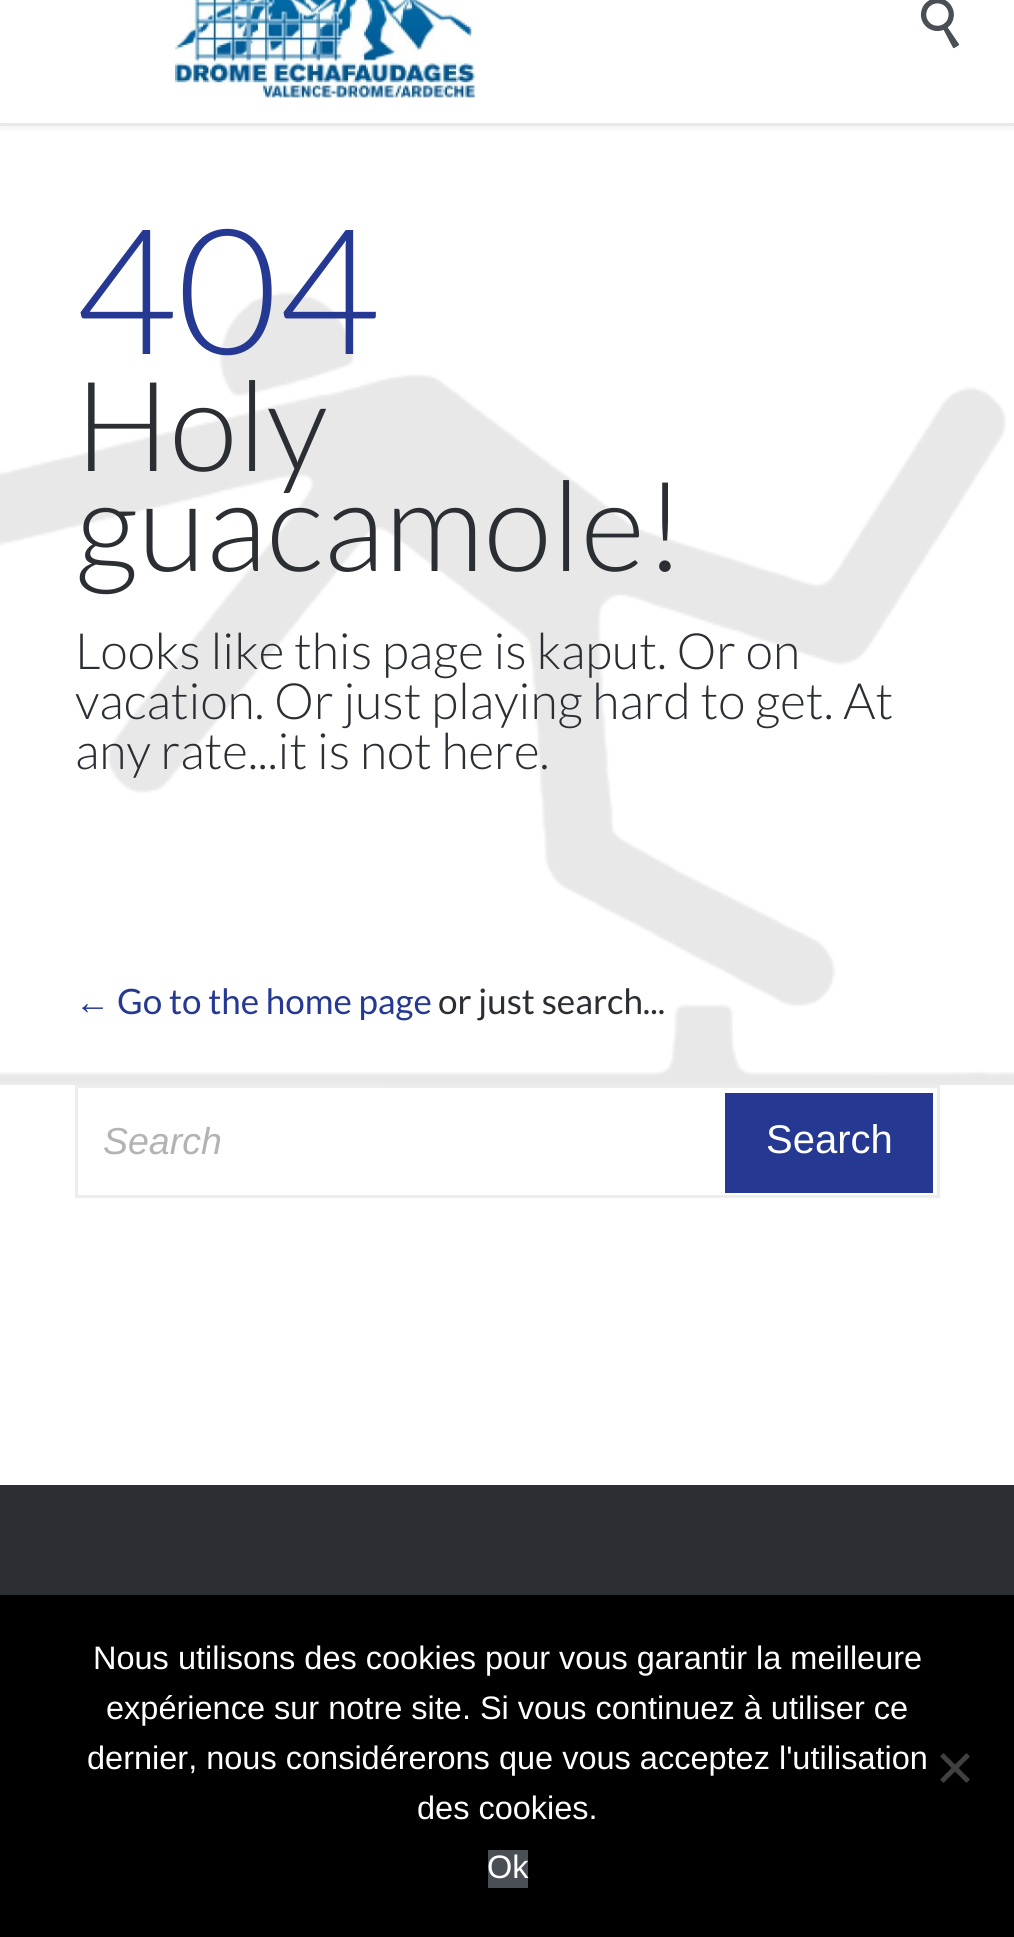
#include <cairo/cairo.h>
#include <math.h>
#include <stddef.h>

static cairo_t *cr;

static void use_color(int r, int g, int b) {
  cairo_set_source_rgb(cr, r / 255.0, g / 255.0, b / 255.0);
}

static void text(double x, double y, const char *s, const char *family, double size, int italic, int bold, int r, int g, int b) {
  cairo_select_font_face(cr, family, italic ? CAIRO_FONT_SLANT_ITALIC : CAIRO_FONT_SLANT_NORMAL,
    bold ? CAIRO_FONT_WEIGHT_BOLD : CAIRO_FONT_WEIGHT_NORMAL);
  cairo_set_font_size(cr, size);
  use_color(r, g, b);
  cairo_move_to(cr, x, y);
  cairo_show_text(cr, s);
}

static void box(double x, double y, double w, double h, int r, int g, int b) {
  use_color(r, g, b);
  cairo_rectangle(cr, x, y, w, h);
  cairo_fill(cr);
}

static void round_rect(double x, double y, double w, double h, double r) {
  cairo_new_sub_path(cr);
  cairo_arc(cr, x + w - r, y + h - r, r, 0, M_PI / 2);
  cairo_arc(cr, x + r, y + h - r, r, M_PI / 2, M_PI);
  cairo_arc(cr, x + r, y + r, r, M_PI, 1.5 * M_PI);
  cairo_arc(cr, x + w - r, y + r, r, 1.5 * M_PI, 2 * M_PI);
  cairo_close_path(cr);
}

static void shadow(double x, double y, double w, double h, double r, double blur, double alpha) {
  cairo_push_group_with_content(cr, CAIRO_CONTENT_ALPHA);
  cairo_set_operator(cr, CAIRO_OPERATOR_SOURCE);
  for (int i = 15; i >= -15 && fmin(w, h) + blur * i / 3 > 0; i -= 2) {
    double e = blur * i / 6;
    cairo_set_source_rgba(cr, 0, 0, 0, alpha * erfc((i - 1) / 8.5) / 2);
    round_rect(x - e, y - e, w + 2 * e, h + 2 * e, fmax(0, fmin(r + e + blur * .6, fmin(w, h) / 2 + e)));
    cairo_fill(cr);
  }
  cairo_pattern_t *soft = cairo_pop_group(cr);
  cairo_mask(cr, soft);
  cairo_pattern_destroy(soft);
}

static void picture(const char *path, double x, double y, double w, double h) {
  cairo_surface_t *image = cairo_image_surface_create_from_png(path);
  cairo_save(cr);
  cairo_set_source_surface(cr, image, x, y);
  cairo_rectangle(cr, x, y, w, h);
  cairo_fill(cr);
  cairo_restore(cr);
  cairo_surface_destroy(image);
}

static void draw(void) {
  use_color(255, 255, 255);
  cairo_paint(cr);
  use_color(0, 0, 0);
  shadow(0, -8, 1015, 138, 0, 2.5, 0.04);
  box(0, 0, 1014, 123, 255, 255, 255);
  box(0, 123, 1014, 3, 232, 232, 232);
  picture("img_01.png", 175, 0, 300, 98);
  picture("img_02.png", 920, 0, 40, 49);
  picture("img_03.png", 0, 292, 1014, 793);
  cairo_rectangle(cr, 76.5, 1086.5, 862, 110);
  use_color(237, 237, 237);
  cairo_set_line_width(cr, 3);
  cairo_stroke(cr);
  box(725, 1093, 208, 100, 37, 57, 147);
  box(0, 1485, 1014, 110, 43, 47, 52);
  box(0, 1595, 1014, 342, 0, 0, 0);
  use_color(64, 64, 64);
  cairo_new_path(cr);
  cairo_move_to(cr, 966.5, 1753);
  cairo_line_to(cr, 970, 1756.5);
  cairo_line_to(cr, 943.5, 1783);
  cairo_line_to(cr, 940, 1779.5);
  cairo_close_path(cr);
  cairo_fill(cr);
  cairo_new_path(cr);
  cairo_move_to(cr, 940, 1756.5);
  cairo_line_to(cr, 943.5, 1753);
  cairo_line_to(cr, 970, 1779.5);
  cairo_line_to(cr, 966.5, 1783);
  cairo_close_path(cr);
  cairo_fill(cr);
  box(488, 1850, 40, 38, 74, 79, 85);
  text(75, 354, "404", "Lato Light", 175, 0, 0, 37, 57, 147);
  text(75, 471, "Holy", "Lato Light", 125, 0, 0, 43, 47, 52);
  text(75, 571, "guacamole!", "Lato Light", 125, 0, 0, 43, 47, 52);
  text(75, 669, "Looks like this page is kaput. Or on", "Lato Light", 50, 0, 0, 43, 47, 52);
  text(75, 719, "vacation. Or just playing hard to get. At", "Lato Light", 50, 0, 0, 43, 47, 52);
  text(75, 769, "any rate...it is not here.", "Lato Light", 50, 0, 0, 43, 47, 52);
  text(75, 1014, "←", "Liberation Serif", 35, 0, 0, 37, 57, 147);
  text(117, 1014, "Go to the home page", "Lato", 35, 0, 0, 37, 57, 147);
  text(438, 1014, "or just search...", "Lato", 35, 0, 0, 43, 47, 52);
  text(103, 1154, "Search", "Liberation Sans", 37.5, 1, 0, 179, 179, 179);
  text(766, 1153, "Search", "Liberation Sans", 40, 0, 0, 255, 255, 255);
  text(93, 1669, "Nous utilisons des cookies pour vous garantir la meilleure", "Liberation Sans", 32.5, 0, 0, 255, 255, 255);
  text(106, 1719, "expérience sur notre site. Si vous continuez à utiliser ce", "Liberation Sans", 32.5, 0, 0, 255, 255, 255);
  text(87, 1769, "dernier, nous considérerons que vous acceptez l'utilisation", "Liberation Sans", 32.5, 0, 0, 255, 255, 255);
  text(417, 1819, "des cookies.", "Liberation Sans", 32.5, 0, 0, 255, 255, 255);
  text(487, 1878, "Ok", "Liberation Sans", 32.5, 0, 0, 255, 255, 255);
}

int main(void) {
  cairo_surface_t *surface = cairo_image_surface_create(CAIRO_FORMAT_RGB24, 1014, 1937);
  cr = cairo_create(surface);
  cairo_font_options_t *options = cairo_font_options_create();
  cairo_font_options_set_hint_metrics(options, CAIRO_HINT_METRICS_OFF);
  cairo_font_options_set_hint_style(options, CAIRO_HINT_STYLE_NONE);
  cairo_set_font_options(cr, options);
  cairo_set_miter_limit(cr, 4);
  draw();
  cairo_surface_write_to_png(surface, "out.png");
  cairo_font_options_destroy(options);
  cairo_destroy(cr);
  cairo_surface_destroy(surface);
  return 0;
}
